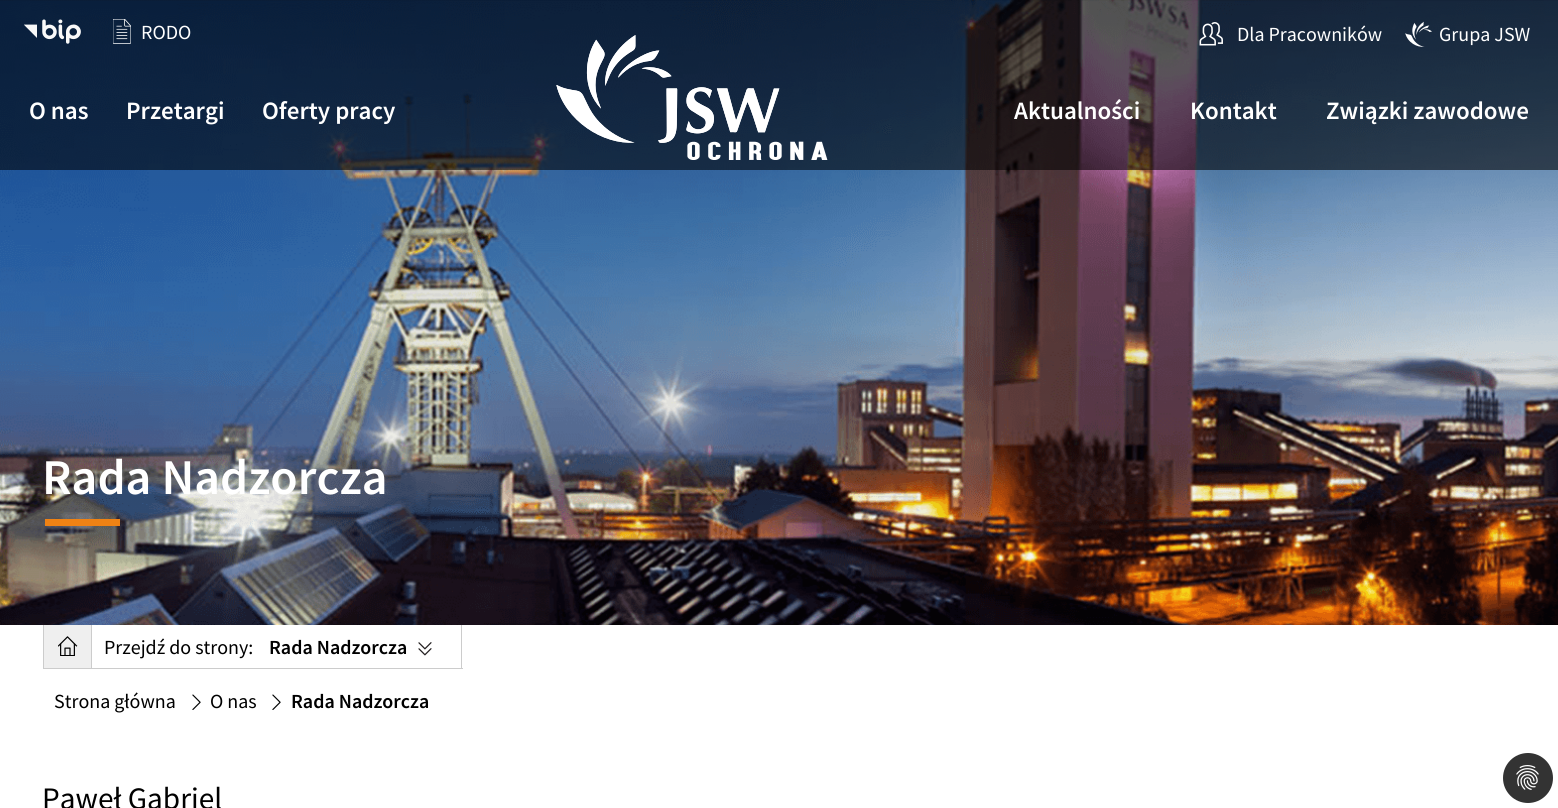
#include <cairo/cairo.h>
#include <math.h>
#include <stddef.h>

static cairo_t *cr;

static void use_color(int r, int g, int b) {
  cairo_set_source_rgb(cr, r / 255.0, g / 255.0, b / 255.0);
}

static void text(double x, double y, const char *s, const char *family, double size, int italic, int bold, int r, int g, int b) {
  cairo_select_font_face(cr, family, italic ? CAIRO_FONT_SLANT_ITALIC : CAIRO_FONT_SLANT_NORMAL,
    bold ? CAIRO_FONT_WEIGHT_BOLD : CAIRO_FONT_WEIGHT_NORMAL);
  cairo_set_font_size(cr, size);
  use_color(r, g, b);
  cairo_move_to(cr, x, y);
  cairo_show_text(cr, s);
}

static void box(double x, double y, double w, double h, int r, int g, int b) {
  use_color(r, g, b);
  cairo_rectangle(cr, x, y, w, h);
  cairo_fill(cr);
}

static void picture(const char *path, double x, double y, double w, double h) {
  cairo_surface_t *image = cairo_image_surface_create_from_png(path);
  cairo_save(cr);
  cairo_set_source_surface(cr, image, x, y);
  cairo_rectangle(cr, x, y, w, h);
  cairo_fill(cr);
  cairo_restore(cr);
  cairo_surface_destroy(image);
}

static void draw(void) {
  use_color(255, 255, 255);
  cairo_paint(cr);
  picture("img_06.png", 0, 0, 1558, 625);
  cairo_set_source_rgba(cr, 0, 0, 0, 0.56);
  cairo_rectangle(cr, 0, 0, 1558, 170);
  cairo_fill(cr);
  picture("img_01.png", 24, 19, 57, 25);
  picture("img_02.png", 113, 19, 18, 25);
  picture("img_03.png", 1199, 22, 24, 24);
  picture("img_04.png", 1405, 21, 27, 26);
  picture("img_05.png", 556, 35, 272, 125);
  box(45, 519, 75, 7, 239, 130, 20);
  box(44, 625, 47, 43, 239, 239, 239);
  box(43, 668, 213, 1, 204, 204, 204);
  box(43, 625, 1, 44, 204, 204, 204);
  picture("img_07.png", 58, 636, 20, 20);
  box(91, 625, 1, 44, 204, 204, 204);
  box(461, 625, 1, 44, 204, 204, 204);
  box(256, 668, 207, 1, 204, 204, 204);
  picture("img_08.png", 418, 642, 14, 14);
  picture("img_09.png", 192, 694, 9, 16);
  picture("img_09.png", 272, 694, 9, 16);
  use_color(51, 51, 51);
  cairo_arc(cr, 1528, 778, 25, 0, 2 * M_PI);
  cairo_fill(cr);
  picture("img_10.png", 1516, 765, 23, 25);
  text(141, 39, "RODO", "Source Sans Pro", 20, 0, 0, 255, 255, 255);
  text(1237, 41, "Dla Pracowników", "Source Sans Pro", 20, 0, 0, 255, 255, 255);
  text(1439, 41, "Grupa JSW", "Source Sans Pro", 20, 0, 0, 255, 255, 255);
  text(29, 119, "O nas", "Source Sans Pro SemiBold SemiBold", 25, 0, 0, 255, 255, 255);
  text(126, 119, "Przetargi", "Source Sans Pro SemiBold SemiBold", 25, 0, 0, 255, 255, 255);
  text(262, 119, "Oferty pracy", "Source Sans Pro SemiBold SemiBold", 25, 0, 0, 255, 255, 255);
  text(1014, 119, "Aktualności", "Source Sans Pro SemiBold SemiBold", 25, 0, 0, 255, 255, 255);
  text(1190, 119, "Kontakt", "Source Sans Pro SemiBold SemiBold", 25, 0, 0, 255, 255, 255);
  text(1326, 119, "Związki zawodowe", "Source Sans Pro SemiBold SemiBold", 25, 0, 0, 255, 255, 255);
  text(42, 494, "Rada Nadzorcza", "Source Sans Pro SemiBold SemiBold", 50, 0, 0, 255, 255, 255);
  text(104, 654, "Przejdź do strony:", "Source Sans Pro", 20, 0, 0, 0, 0, 0);
  text(269, 654, "Rada Nadzorcza", "Source Sans Pro SemiBold SemiBold", 20, 0, 0, 0, 0, 0);
  text(54, 708, "Strona główna", "Source Sans Pro", 20, 0, 0, 0, 0, 0);
  text(210, 708, "O nas", "Source Sans Pro", 20, 0, 0, 0, 0, 0);
  text(291, 708, "Rada Nadzorcza", "Source Sans Pro SemiBold SemiBold", 20, 0, 0, 0, 0, 0);
  text(42, 809, "Paweł Gabriel", "Source Sans Pro", 31.25, 0, 0, 0, 0, 0);
}

int main(void) {
  cairo_surface_t *surface = cairo_image_surface_create(CAIRO_FORMAT_RGB24, 1558, 808);
  cr = cairo_create(surface);
  cairo_font_options_t *options = cairo_font_options_create();
  cairo_font_options_set_hint_metrics(options, CAIRO_HINT_METRICS_OFF);
  cairo_font_options_set_hint_style(options, CAIRO_HINT_STYLE_NONE);
  cairo_set_font_options(cr, options);
  cairo_set_miter_limit(cr, 4);
  draw();
  cairo_surface_write_to_png(surface, "out.png");
  cairo_font_options_destroy(options);
  cairo_destroy(cr);
  cairo_surface_destroy(surface);
  return 0;
}
